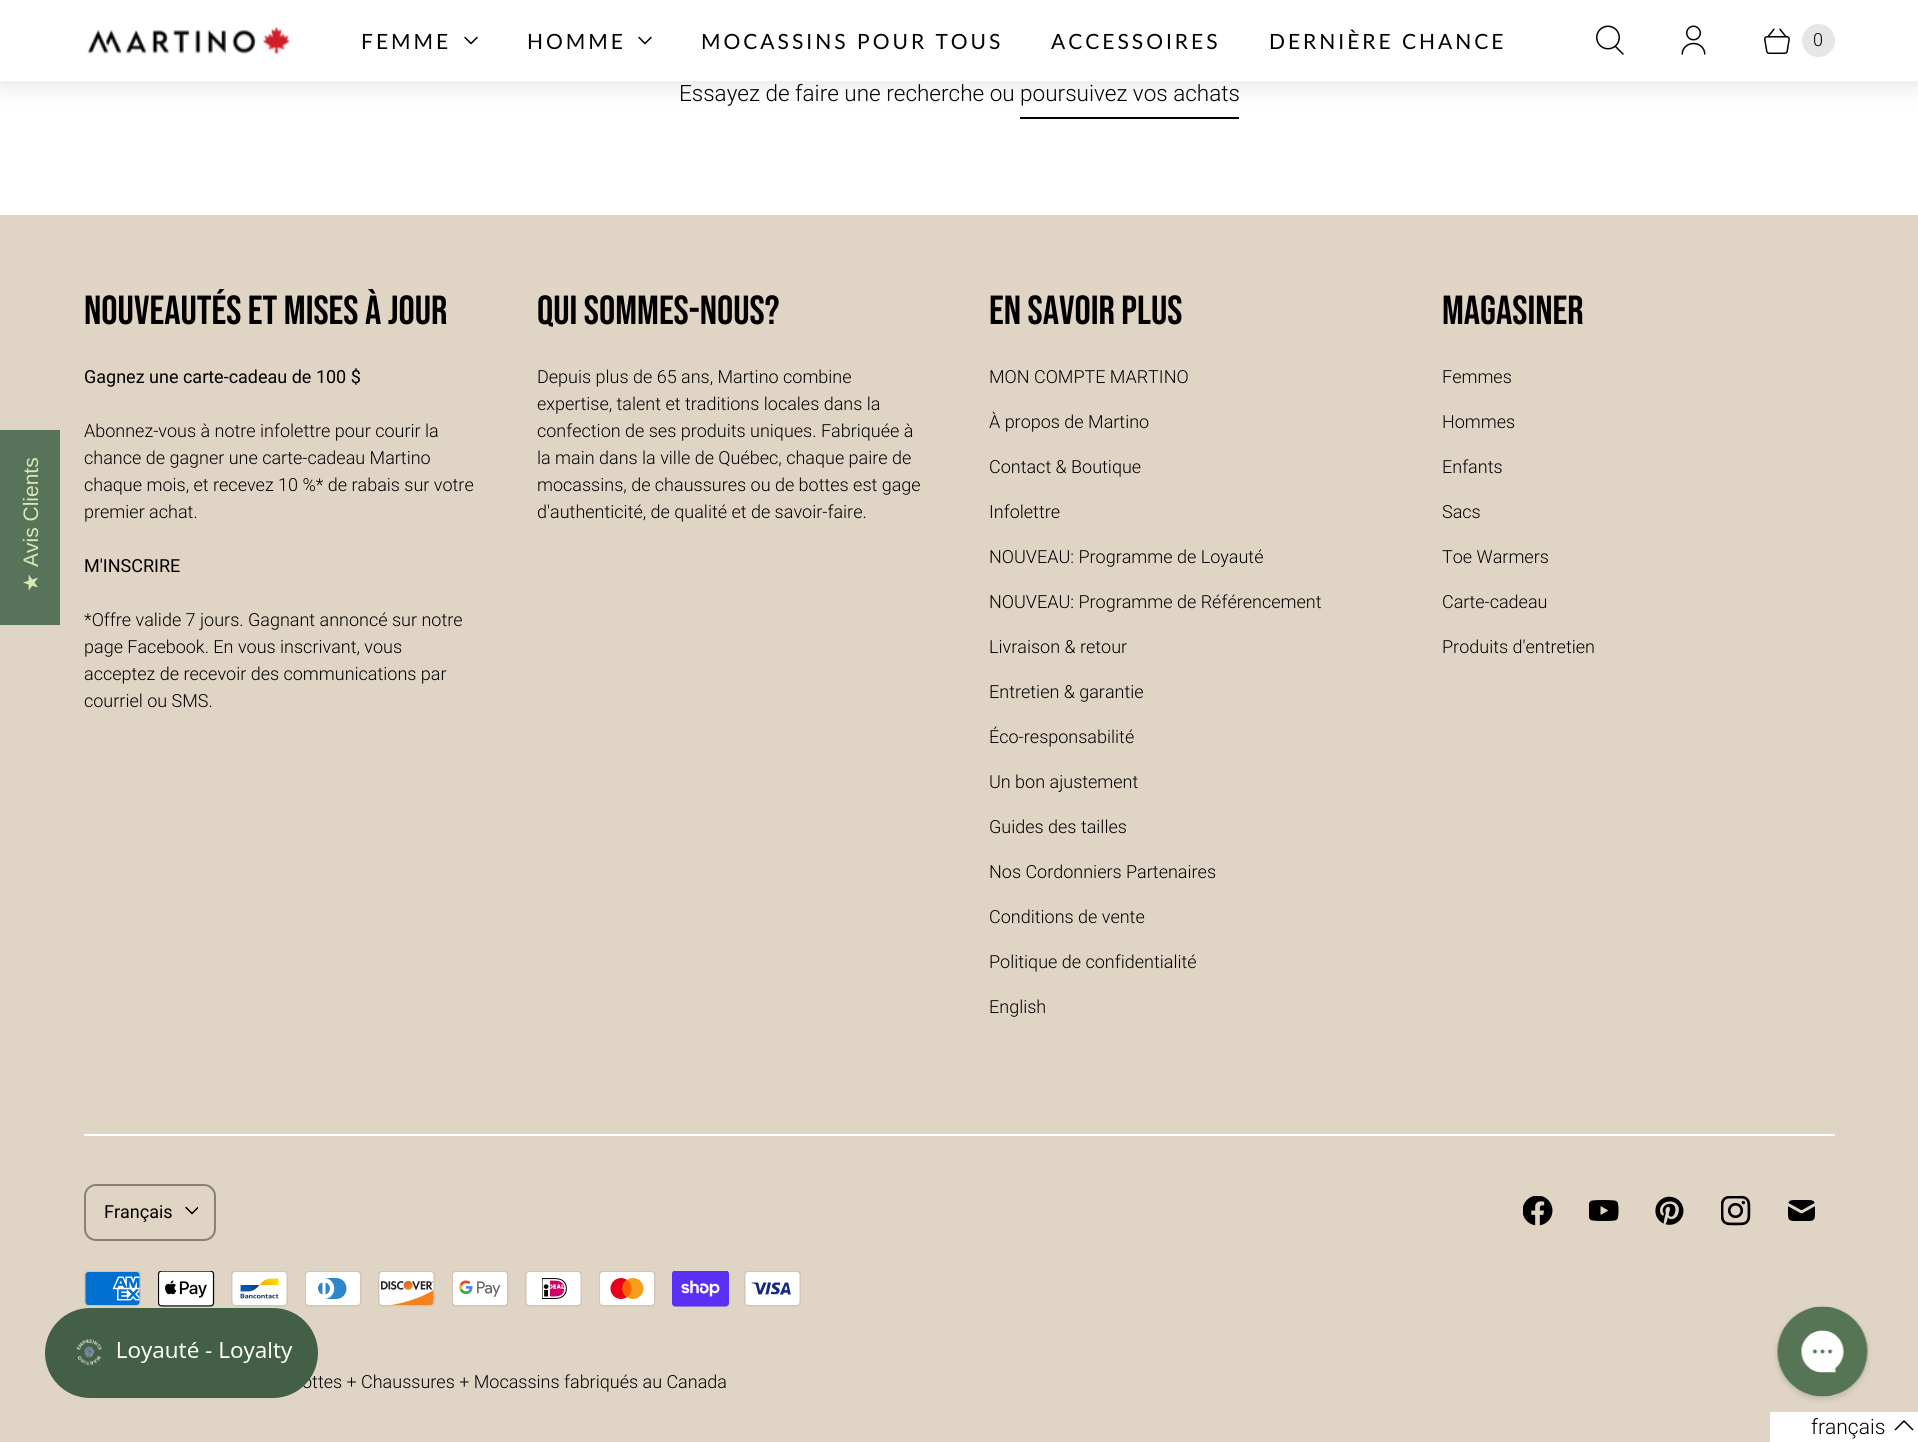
#include <cairo/cairo.h>
#include <math.h>
#include <stddef.h>

static cairo_t *cr;

static void use_color(int r, int g, int b) {
  cairo_set_source_rgb(cr, r / 255.0, g / 255.0, b / 255.0);
}

static void text(double x, double y, const char *s, const char *family, double size, int italic, int bold, int r, int g, int b) {
  cairo_select_font_face(cr, family, italic ? CAIRO_FONT_SLANT_ITALIC : CAIRO_FONT_SLANT_NORMAL,
    bold ? CAIRO_FONT_WEIGHT_BOLD : CAIRO_FONT_WEIGHT_NORMAL);
  cairo_set_font_size(cr, size);
  use_color(r, g, b);
  cairo_move_to(cr, x, y);
  cairo_show_text(cr, s);
}

static void spaced_text(double x, double y, const char *s, double letter, double word) {
  cairo_move_to(cr, x, y);
  while (*s) {
    char ch[5] = {0};
    int n = 0;
    do ch[n++] = *s++; while ((*s & 0xC0) == 0x80);
    cairo_show_text(cr, ch);
    cairo_rel_move_to(cr, letter + word * (*ch == ' '), 0);
  }
}

static void box(double x, double y, double w, double h, int r, int g, int b) {
  use_color(r, g, b);
  cairo_rectangle(cr, x, y, w, h);
  cairo_fill(cr);
}

static void round_rect(double x, double y, double w, double h, double r) {
  cairo_new_sub_path(cr);
  cairo_arc(cr, x + w - r, y + h - r, r, 0, M_PI / 2);
  cairo_arc(cr, x + r, y + h - r, r, M_PI / 2, M_PI);
  cairo_arc(cr, x + r, y + r, r, M_PI, 1.5 * M_PI);
  cairo_arc(cr, x + w - r, y + r, r, 1.5 * M_PI, 2 * M_PI);
  cairo_close_path(cr);
}

static void shadow(double x, double y, double w, double h, double r, double blur, double alpha) {
  cairo_push_group_with_content(cr, CAIRO_CONTENT_ALPHA);
  cairo_set_operator(cr, CAIRO_OPERATOR_SOURCE);
  for (int i = 15; i >= -15 && fmin(w, h) + blur * i / 3 > 0; i -= 2) {
    double e = blur * i / 6;
    cairo_set_source_rgba(cr, 0, 0, 0, alpha * erfc((i - 1) / 8.5) / 2);
    round_rect(x - e, y - e, w + 2 * e, h + 2 * e, fmax(0, fmin(r + e + blur * .6, fmin(w, h) / 2 + e)));
    cairo_fill(cr);
  }
  cairo_pattern_t *soft = cairo_pop_group(cr);
  cairo_mask(cr, soft);
  cairo_pattern_destroy(soft);
}

static void picture(const char *path, double x, double y, double w, double h) {
  cairo_surface_t *image = cairo_image_surface_create_from_png(path);
  cairo_save(cr);
  cairo_set_source_surface(cr, image, x, y);
  cairo_rectangle(cr, x, y, w, h);
  cairo_fill(cr);
  cairo_restore(cr);
  cairo_surface_destroy(image);
}

static void draw(void) {
  use_color(255, 255, 255);
  cairo_paint(cr);
  box(1020, 117, 219, 2, 0, 0, 0);
  use_color(0, 0, 0);
  shadow(-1, -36, 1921, 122, 0, 12, 0.1);
  box(0, 0, 1918, 81, 255, 255, 255);
  picture("img_01.png", 87, 26, 204, 29);
  picture("img_02.png", 464, 36, 14, 9);
  picture("img_02.png", 638, 36, 14, 9);
  picture("img_03.png", 1596, 25, 28, 30);
  picture("img_04.png", 1681, 25, 25, 30);
  picture("img_05.png", 1764, 28, 26, 26);
  use_color(230, 230, 230);
  cairo_arc(cr, 1818.5, 40.5, 16.5, 0, 2 * M_PI);
  cairo_fill(cr);
  box(0, 215, 1918, 1227, 224, 213, 197);
  box(0, 430, 60, 195, 87, 116, 91);
  box(84, 1134, 1751, 2, 255, 255, 255);
  round_rect(85, 1185, 130, 55, 11);
  use_color(134, 128, 118);
  cairo_stroke(cr);
  picture("img_06.png", 185, 1206, 13, 9);
  picture("img_07.png", 84, 1271, 57, 36);
  picture("img_08.png", 158, 1271, 57, 36);
  picture("img_09.png", 231, 1271, 57, 36);
  picture("img_10.png", 305, 1271, 57, 36);
  picture("img_11.png", 378, 1271, 57, 36);
  picture("img_12.png", 452, 1271, 57, 36);
  picture("img_13.png", 525, 1271, 57, 36);
  picture("img_14.png", 599, 1271, 57, 36);
  picture("img_15.png", 672, 1271, 57, 36);
  picture("img_16.png", 744, 1271, 57, 36);
  picture("img_17.png", 1523, 1196, 30, 30);
  picture("img_18.png", 1589, 1200, 30, 21);
  picture("img_19.png", 1655, 1196, 29, 29);
  picture("img_20.png", 1721, 1196, 30, 30);
  picture("img_21.png", 1788, 1200, 27, 21);
  picture("img_23.png", 1774, 1306, 97, 97);
  box(1770, 1412, 148, 30, 255, 255, 255);
  cairo_new_path(cr);
  cairo_move_to(cr, 1913, 1430);
  cairo_line_to(cr, 1904, 1421);
  cairo_line_to(cr, 1895, 1430);
  use_color(0, 0, 0);
  cairo_set_line_width(cr, 1.5);
  cairo_stroke(cr);
  cairo_select_font_face(cr, "Lato", CAIRO_FONT_SLANT_NORMAL, CAIRO_FONT_WEIGHT_NORMAL);
  cairo_set_font_size(cr, 21);
  spaced_text(361, 49, "FEMME", 3, 0);
  spaced_text(527, 49, "HOMME", 3, 0);
  spaced_text(701, 49, "MOCASSINS POUR TOUS", 3, 0);
  spaced_text(1051, 49, "ACCESSOIRES", 3, 0);
  spaced_text(1269, 49, "DERNIÈRE CHANCE", 3, 0);
  text(1813, 46, "0", "Roboto Light", 18, 0, 0, 0, 0, 0);
  text(679, 101, "Essayez de faire une recherche ou poursuivez vos achats", "Roboto Light", 22.5, 0, 0, 0, 0, 0);
  cairo_save(cr);
  cairo_translate(cr, 38, 567);
  cairo_rotate(cr, -90 * M_PI / 180);
  text(0, 0, "Avis Clients", "Liberation Sans", 21, 0, 0, 220, 229, 181);
  cairo_restore(cr);
  cairo_save(cr);
  cairo_translate(cr, 38, 592);
  cairo_rotate(cr, -90 * M_PI / 180);
  text(0, 0, "★", "DejaVu Sans", 21, 0, 0, 220, 229, 181);
  cairo_restore(cr);
  text(84, 324, "Nouveautés et mises à jour", "Bebas Neue", 40.6, 0, 0, 0, 0, 0);
  text(84, 383, "Gagnez une carte-cadeau de 100 $", "Roboto", 18, 0, 0, 0, 0, 0);
  text(84, 437, "Abonnez-vous à notre infolettre pour courir la", "Roboto Light", 18, 0, 0, 0, 0, 0);
  text(84, 464, "chance de gagner une carte-cadeau Martino", "Roboto Light", 18, 0, 0, 0, 0, 0);
  text(84, 491, "chaque mois, et recevez 10 %* de rabais sur votre", "Roboto Light", 18, 0, 0, 0, 0, 0);
  text(84, 518, "premier achat.", "Roboto Light", 18, 0, 0, 0, 0, 0);
  text(84, 572, "M'INSCRIRE", "Roboto", 18, 0, 0, 0, 0, 0);
  text(84, 626, "*Offre valide 7 jours. Gagnant annoncé sur notre", "Roboto Light", 18, 0, 0, 0, 0, 0);
  text(84, 653, "page Facebook. En vous inscrivant, vous", "Roboto Light", 18, 0, 0, 0, 0, 0);
  text(84, 680, "acceptez de recevoir des communications par", "Roboto Light", 18, 0, 0, 0, 0, 0);
  text(84, 707, "courriel ou SMS.", "Roboto Light", 18, 0, 0, 0, 0, 0);
  text(537, 324, "Qui sommes-nous?", "Bebas Neue", 40.6, 0, 0, 0, 0, 0);
  text(537, 383, "Depuis plus de 65 ans, Martino combine", "Roboto Light", 18, 0, 0, 0, 0, 0);
  text(537, 410, "expertise, talent et traditions locales dans la", "Roboto Light", 18, 0, 0, 0, 0, 0);
  text(537, 437, "confection de ses produits uniques. Fabriquée à", "Roboto Light", 18, 0, 0, 0, 0, 0);
  text(537, 464, "la main dans la ville de Québec, chaque paire de", "Roboto Light", 18, 0, 0, 0, 0, 0);
  text(537, 491, "mocassins, de chaussures ou de bottes est gage", "Roboto Light", 18, 0, 0, 0, 0, 0);
  text(537, 518, "d'authenticité, de qualité et de savoir-faire.", "Roboto Light", 18, 0, 0, 0, 0, 0);
  text(989, 324, "En savoir plus", "Bebas Neue", 40.6, 0, 0, 0, 0, 0);
  text(989, 383, "MON COMPTE MARTINO", "Roboto Light", 18, 0, 0, 0, 0, 0);
  text(989, 428, "À propos de Martino", "Roboto Light", 18, 0, 0, 0, 0, 0);
  text(989, 473, "Contact & Boutique", "Roboto Light", 18, 0, 0, 0, 0, 0);
  text(989, 518, "Infolettre", "Roboto Light", 18, 0, 0, 0, 0, 0);
  text(989, 563, "NOUVEAU: Programme de Loyauté", "Roboto Light", 18, 0, 0, 0, 0, 0);
  text(989, 608, "NOUVEAU: Programme de Référencement", "Roboto Light", 18, 0, 0, 0, 0, 0);
  text(989, 653, "Livraison & retour", "Roboto Light", 18, 0, 0, 0, 0, 0);
  text(989, 698, "Entretien & garantie", "Roboto Light", 18, 0, 0, 0, 0, 0);
  text(989, 743, "Éco-responsabilité", "Roboto Light", 18, 0, 0, 0, 0, 0);
  text(989, 788, "Un bon ajustement", "Roboto Light", 18, 0, 0, 0, 0, 0);
  text(989, 833, "Guides des tailles", "Roboto Light", 18, 0, 0, 0, 0, 0);
  text(989, 878, "Nos Cordonniers Partenaires", "Roboto Light", 18, 0, 0, 0, 0, 0);
  text(989, 923, "Conditions de vente", "Roboto Light", 18, 0, 0, 0, 0, 0);
  text(989, 968, "Politique de confidentialité", "Roboto Light", 18, 0, 0, 0, 0, 0);
  text(989, 1013, "English", "Roboto Light", 18, 0, 0, 0, 0, 0);
  text(1442, 324, "Magasiner", "Bebas Neue", 40.6, 0, 0, 0, 0, 0);
  text(1442, 383, "Femmes", "Roboto Light", 18, 0, 0, 0, 0, 0);
  text(1442, 428, "Hommes", "Roboto Light", 18, 0, 0, 0, 0, 0);
  text(1442, 473, "Enfants", "Roboto Light", 18, 0, 0, 0, 0, 0);
  text(1442, 518, "Sacs", "Roboto Light", 18, 0, 0, 0, 0, 0);
  text(1442, 563, "Toe Warmers", "Roboto Light", 18, 0, 0, 0, 0, 0);
  text(1442, 608, "Carte-cadeau", "Roboto Light", 18, 0, 0, 0, 0, 0);
  text(1442, 653, "Produits d'entretien", "Roboto Light", 18, 0, 0, 0, 0, 0);
  text(104, 1218, "Français", "Roboto", 18, 0, 0, 0, 0, 0);
  text(302, 1388, "ottes + Chaussures + Mocassins fabriqués au Canada", "Roboto Light", 18, 0, 0, 0, 0, 0);
  use_color(67, 95, 69);
  round_rect(45, 1308, 273, 90, 45);
  cairo_fill(cr);
  picture("img_22.png", 76, 1339, 217, 27);
  text(1811, 1434, "français", "Roboto Light", 21, 0, 0, 0, 0, 0);
}

int main(void) {
  cairo_surface_t *surface = cairo_image_surface_create(CAIRO_FORMAT_RGB24, 1918, 1442);
  cr = cairo_create(surface);
  cairo_font_options_t *options = cairo_font_options_create();
  cairo_font_options_set_hint_metrics(options, CAIRO_HINT_METRICS_OFF);
  cairo_font_options_set_hint_style(options, CAIRO_HINT_STYLE_NONE);
  cairo_set_font_options(cr, options);
  cairo_set_miter_limit(cr, 4);
  draw();
  cairo_surface_write_to_png(surface, "out.png");
  cairo_font_options_destroy(options);
  cairo_destroy(cr);
  cairo_surface_destroy(surface);
  return 0;
}
